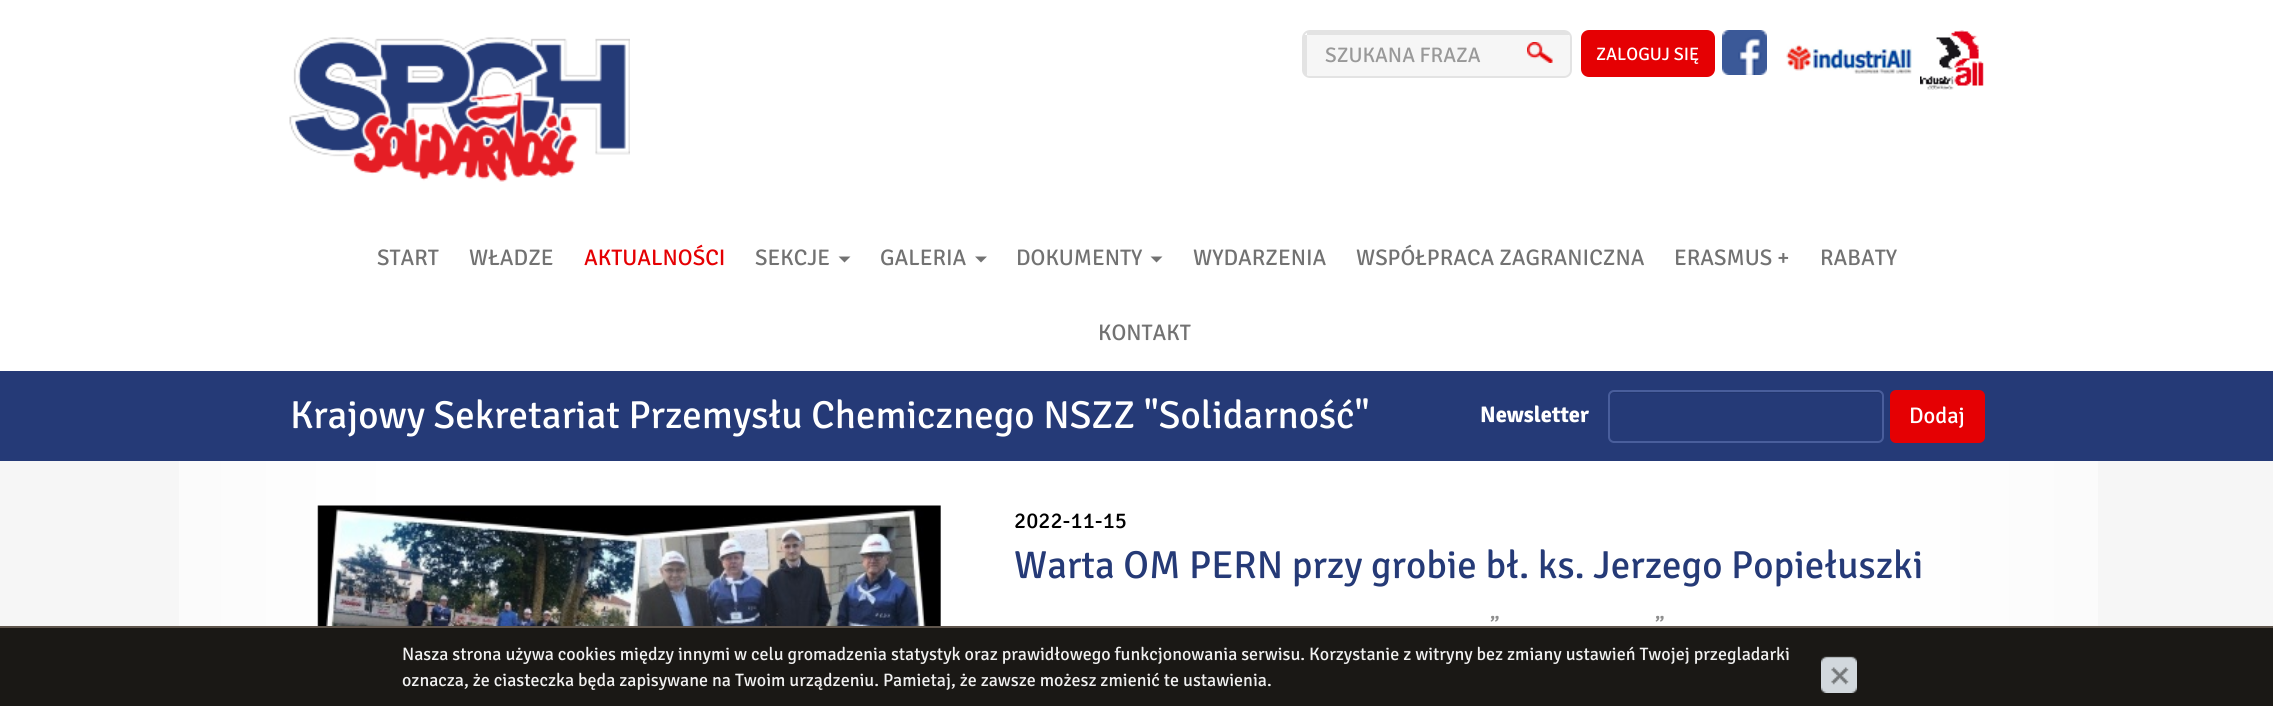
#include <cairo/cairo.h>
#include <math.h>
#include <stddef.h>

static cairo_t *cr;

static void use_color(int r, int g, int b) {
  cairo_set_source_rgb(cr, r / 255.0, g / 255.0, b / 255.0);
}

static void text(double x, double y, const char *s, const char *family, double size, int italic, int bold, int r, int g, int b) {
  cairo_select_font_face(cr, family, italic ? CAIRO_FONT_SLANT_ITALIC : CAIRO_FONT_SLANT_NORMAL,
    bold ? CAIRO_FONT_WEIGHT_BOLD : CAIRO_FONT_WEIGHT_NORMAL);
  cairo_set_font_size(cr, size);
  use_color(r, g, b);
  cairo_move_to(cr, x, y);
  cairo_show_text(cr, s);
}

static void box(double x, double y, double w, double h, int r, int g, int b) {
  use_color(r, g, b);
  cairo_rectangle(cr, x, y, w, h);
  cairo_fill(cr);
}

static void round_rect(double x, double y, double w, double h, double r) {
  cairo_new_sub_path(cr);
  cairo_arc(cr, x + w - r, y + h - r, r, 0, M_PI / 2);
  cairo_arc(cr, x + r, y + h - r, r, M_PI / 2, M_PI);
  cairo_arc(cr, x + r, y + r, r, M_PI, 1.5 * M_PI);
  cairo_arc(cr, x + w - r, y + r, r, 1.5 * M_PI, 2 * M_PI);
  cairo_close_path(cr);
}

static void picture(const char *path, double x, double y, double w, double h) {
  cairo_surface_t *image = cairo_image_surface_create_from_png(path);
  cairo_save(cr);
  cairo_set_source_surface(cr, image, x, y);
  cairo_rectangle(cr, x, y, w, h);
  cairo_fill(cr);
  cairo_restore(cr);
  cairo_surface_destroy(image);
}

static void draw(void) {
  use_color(246, 246, 246);
  cairo_paint(cr);
  picture("img_01.png", 179, 461, 1919, 165);
  box(0, 0, 2273, 371, 255, 255, 255);
  picture("img_02.png", 289, 37, 341, 145);
  use_color(246, 246, 246);
  cairo_new_path(cr);
  cairo_move_to(cr, 1310, 34);
  cairo_line_to(cr, 1564, 34);
  cairo_curve_to(cr, 1568, 34, 1570, 36, 1570, 38);
  cairo_line_to(cr, 1570, 70);
  cairo_curve_to(cr, 1570, 74, 1568, 76, 1564, 76);
  cairo_line_to(cr, 1310, 76);
  cairo_curve_to(cr, 1308, 76, 1306, 74, 1306, 70);
  cairo_line_to(cr, 1306, 38);
  cairo_curve_to(cr, 1306, 36, 1308, 34, 1310, 34);
  cairo_close_path(cr);
  cairo_fill(cr);
  round_rect(1303, 31, 268, 46, 7);
  use_color(227, 227, 227);
  cairo_stroke(cr);
  box(1307, 32, 262, 3, 227, 227, 227);
  box(1304, 35, 3, 40, 227, 227, 227);
  picture("img_03.png", 1527, 42, 26, 21);
  use_color(229, 0, 3);
  round_rect(1581, 30, 134, 47, 8);
  cairo_fill(cr);
  picture("img_04.png", 1722, 30, 45, 45);
  picture("img_05.png", 1786, 44, 126, 30);
  picture("img_06.png", 1920, 30, 64, 60);
  use_color(114, 114, 114);
  cairo_new_path(cr);
  cairo_move_to(cr, 838.5, 256.5);
  cairo_line_to(cr, 850.5, 256.5);
  cairo_line_to(cr, 844.5, 262.5);
  cairo_close_path(cr);
  cairo_fill(cr);
  cairo_new_path(cr);
  cairo_move_to(cr, 975, 256.5);
  cairo_line_to(cr, 987, 256.5);
  cairo_line_to(cr, 981, 262.5);
  cairo_close_path(cr);
  cairo_fill(cr);
  cairo_new_path(cr);
  cairo_move_to(cr, 1150.5, 256.5);
  cairo_line_to(cr, 1162.5, 256.5);
  cairo_line_to(cr, 1156.5, 262.5);
  cairo_close_path(cr);
  cairo_fill(cr);
  box(0, 371, 2273, 90, 37, 58, 119);
  use_color(34, 54, 110);
  cairo_new_path(cr);
  cairo_move_to(cr, 1614, 393);
  cairo_line_to(cr, 1878, 393);
  cairo_curve_to(cr, 1880, 393, 1882, 395, 1882, 398);
  cairo_line_to(cr, 1882, 439);
  cairo_curve_to(cr, 1883, 438, 1883, 437, 1883, 436);
  cairo_line_to(cr, 1883, 397);
  cairo_curve_to(cr, 1883, 394, 1881, 392, 1878, 392);
  cairo_line_to(cr, 1615, 392);
  cairo_curve_to(cr, 1612, 392, 1610, 394, 1610, 397);
  cairo_line_to(cr, 1610, 398);
  cairo_curve_to(cr, 1610, 395, 1612, 393, 1614, 393);
  cairo_close_path(cr);
  cairo_fill(cr);
  round_rect(1609, 391, 274, 51, 5);
  use_color(73, 94, 156);
  cairo_stroke(cr);
  use_color(229, 0, 3);
  round_rect(1891, 391, 93, 51, 5);
  cairo_fill_preserve(cr);
  cairo_stroke(cr);
  picture("img_07.png", 317, 505, 624, 121);
  box(0, 628, 2273, 78, 26, 24, 21);
  box(0, 626, 2273, 2, 95, 85, 76);
  picture("img_08.png", 1821, 656, 36, 37);
  text(1325, 62, "SZUKANA FRAZA", "Signika", 21, 0, 0, 153, 153, 153);
  text(1596, 60, "ZALOGUJ SIĘ", "Signika", 18, 0, 0, 255, 255, 255);
  text(377, 265, "START", "Signika", 22.5, 0, 0, 114, 114, 114);
  text(469, 265, "WŁADZE", "Signika", 22.5, 0, 0, 114, 114, 114);
  text(584, 265, "AKTUALNOŚCI", "Signika", 22.5, 0, 0, 229, 0, 3);
  text(755, 265, "SEKCJE", "Signika", 22.5, 0, 0, 114, 114, 114);
  text(880, 265, "GALERIA", "Signika", 22.5, 0, 0, 114, 114, 114);
  text(1016, 265, "DOKUMENTY", "Signika", 22.5, 0, 0, 114, 114, 114);
  text(1193, 265, "WYDARZENIA", "Signika", 22.5, 0, 0, 114, 114, 114);
  text(1356, 265, "WSPÓŁPRACA ZAGRANICZNA", "Signika", 22.5, 0, 0, 114, 114, 114);
  text(1674, 265, "ERASMUS +", "Signika", 22.5, 0, 0, 114, 114, 114);
  text(1820, 265, "RABATY", "Signika", 22.5, 0, 0, 114, 114, 114);
  text(1098, 340, "KONTAKT", "Signika", 22.5, 0, 0, 114, 114, 114);
  text(290, 428, "Krajowy Sekretariat Przemysłu Chemicznego NSZZ \"Solidarność\"", "Signika", 39, 0, 0, 255, 255, 255);
  text(1480, 422, "Newsletter", "Signika", 22.5, 0, 1, 255, 255, 255);
  text(1909, 423, "Dodaj", "Signika", 22.5, 0, 0, 255, 255, 255);
  text(1014, 528, "2022-11-15", "Signika", 22.5, 0, 0, 0, 0, 0);
  text(1014, 578, "Warta OM PERN przy grobie bł. ks. Jerzego Popiełuszki", "Signika", 39, 0, 0, 37, 58, 119);
  text(1490, 633, "”", "Signika", 22.5, 0, 0, 142, 142, 142);
  text(1655, 633, "”", "Signika", 22.5, 0, 0, 142, 142, 142);
  text(402, 660, "Nasza strona używa cookies między innymi w celu gromadzenia statystyk oraz prawidłowego funkcjonowania serwisu. Korzystanie z witryny bez zmiany ustawień Twojej przegladarki", "Signika", 18, 0, 0, 241, 241, 241);
  text(402, 686, "oznacza, że ciasteczka będa zapisywane na Twoim urządzeniu. Pamietaj, że zawsze możesz zmienić te ustawienia.", "Signika", 18, 0, 0, 241, 241, 241);
}

int main(void) {
  cairo_surface_t *surface = cairo_image_surface_create(CAIRO_FORMAT_RGB24, 2273, 706);
  cr = cairo_create(surface);
  cairo_font_options_t *options = cairo_font_options_create();
  cairo_font_options_set_hint_metrics(options, CAIRO_HINT_METRICS_OFF);
  cairo_font_options_set_hint_style(options, CAIRO_HINT_STYLE_NONE);
  cairo_set_font_options(cr, options);
  cairo_set_miter_limit(cr, 4);
  draw();
  cairo_surface_write_to_png(surface, "out.png");
  cairo_font_options_destroy(options);
  cairo_destroy(cr);
  cairo_surface_destroy(surface);
  return 0;
}
